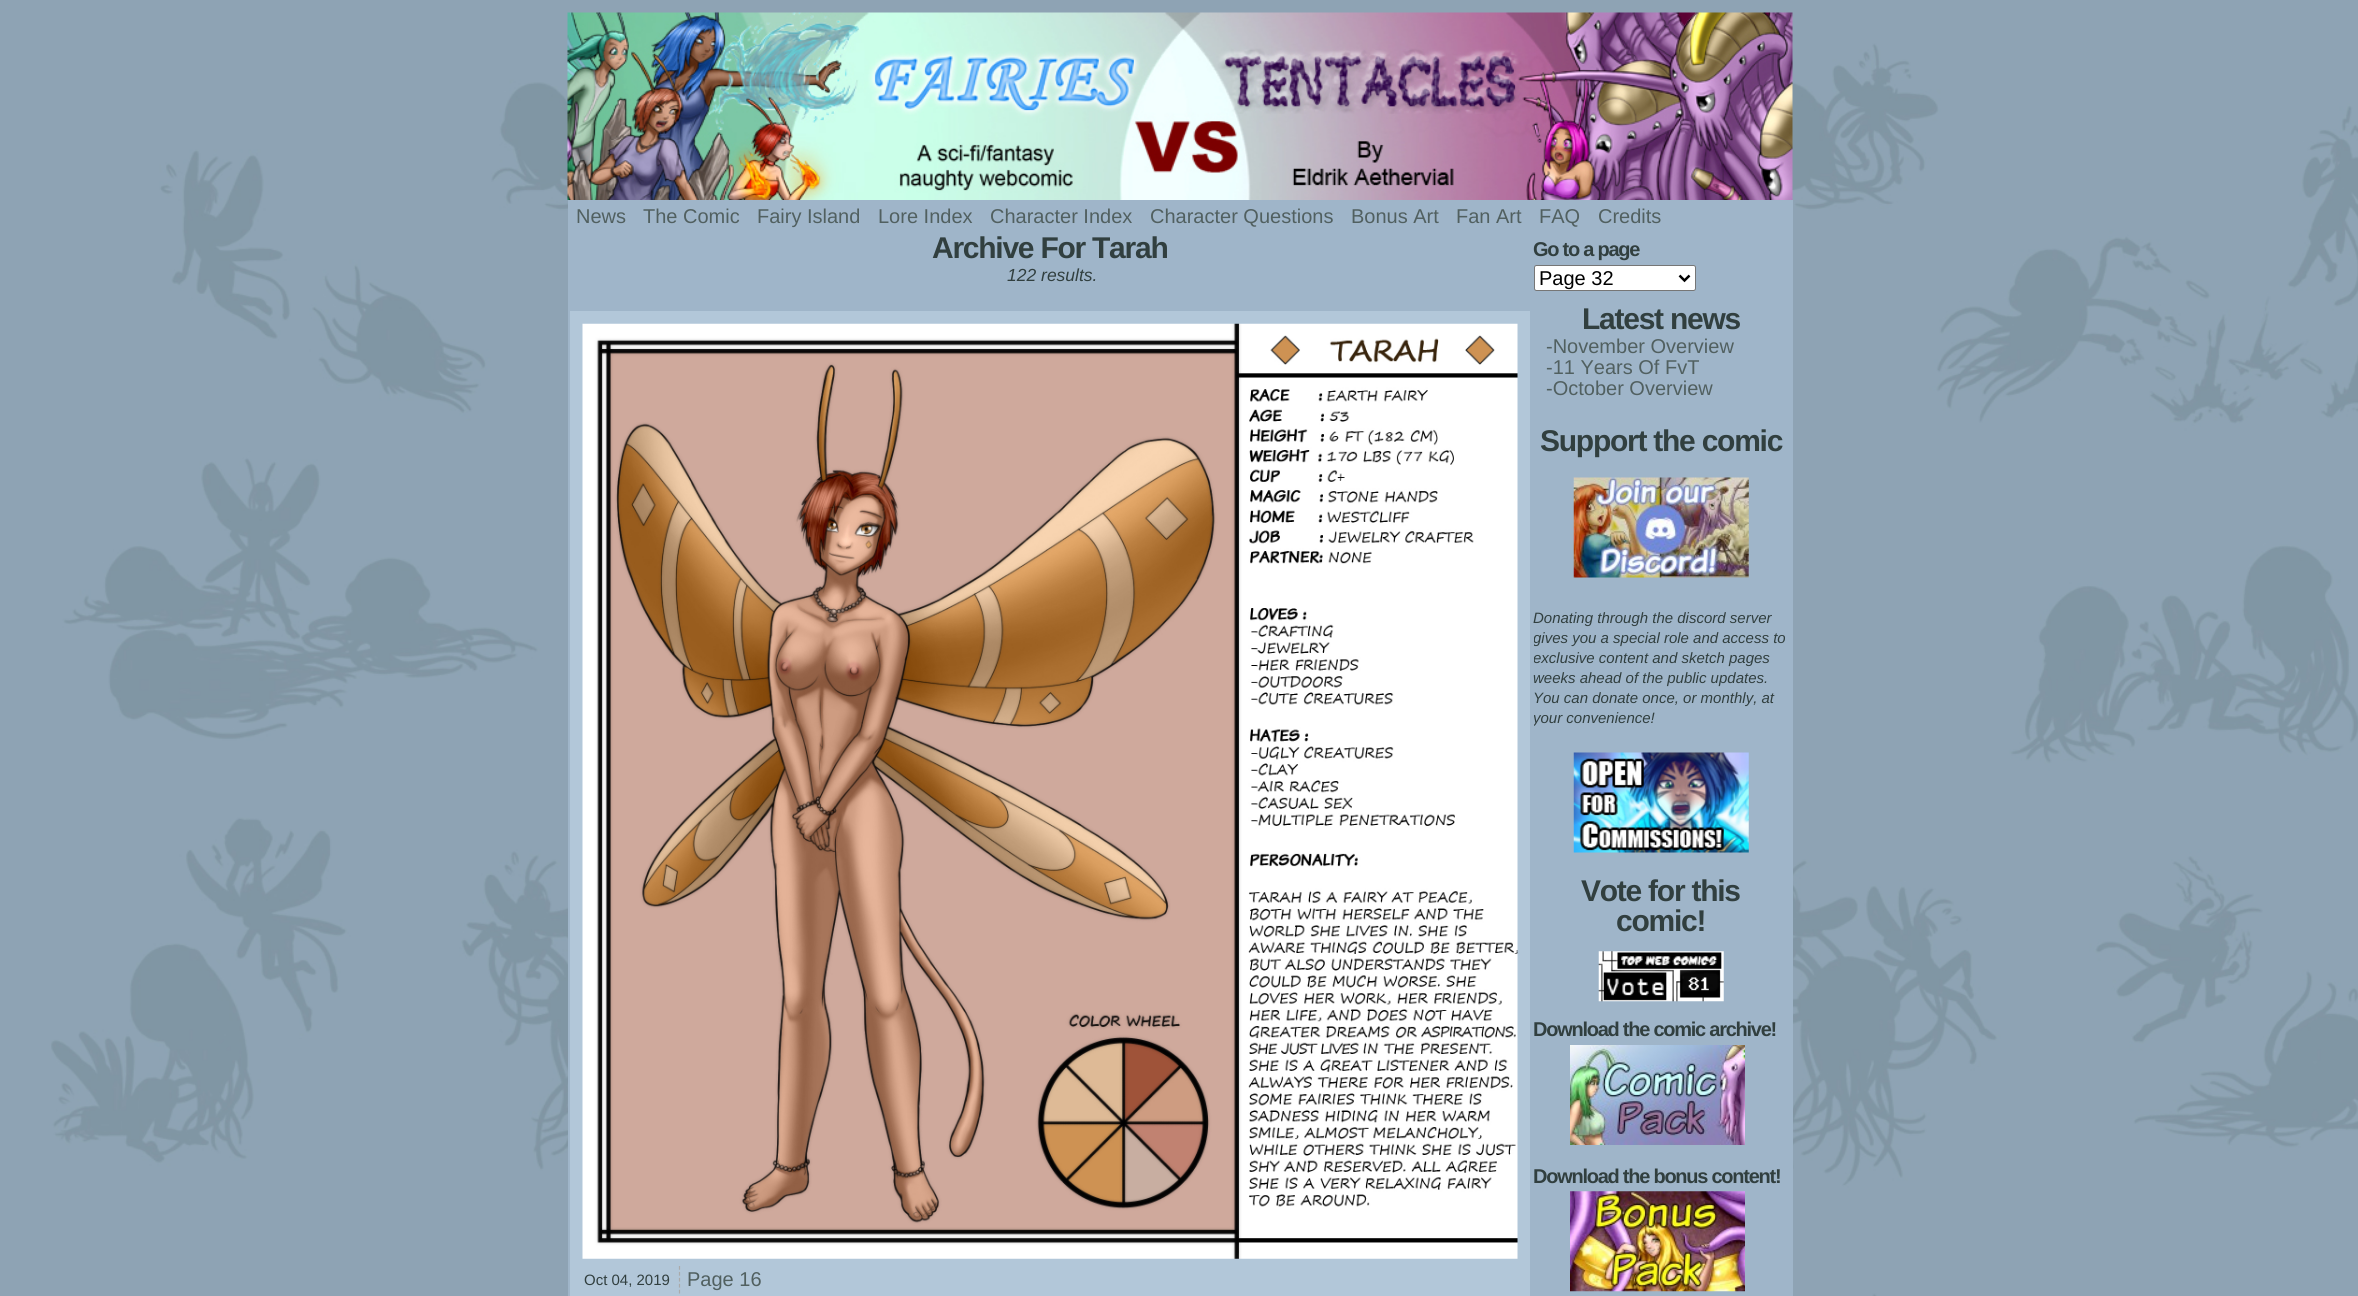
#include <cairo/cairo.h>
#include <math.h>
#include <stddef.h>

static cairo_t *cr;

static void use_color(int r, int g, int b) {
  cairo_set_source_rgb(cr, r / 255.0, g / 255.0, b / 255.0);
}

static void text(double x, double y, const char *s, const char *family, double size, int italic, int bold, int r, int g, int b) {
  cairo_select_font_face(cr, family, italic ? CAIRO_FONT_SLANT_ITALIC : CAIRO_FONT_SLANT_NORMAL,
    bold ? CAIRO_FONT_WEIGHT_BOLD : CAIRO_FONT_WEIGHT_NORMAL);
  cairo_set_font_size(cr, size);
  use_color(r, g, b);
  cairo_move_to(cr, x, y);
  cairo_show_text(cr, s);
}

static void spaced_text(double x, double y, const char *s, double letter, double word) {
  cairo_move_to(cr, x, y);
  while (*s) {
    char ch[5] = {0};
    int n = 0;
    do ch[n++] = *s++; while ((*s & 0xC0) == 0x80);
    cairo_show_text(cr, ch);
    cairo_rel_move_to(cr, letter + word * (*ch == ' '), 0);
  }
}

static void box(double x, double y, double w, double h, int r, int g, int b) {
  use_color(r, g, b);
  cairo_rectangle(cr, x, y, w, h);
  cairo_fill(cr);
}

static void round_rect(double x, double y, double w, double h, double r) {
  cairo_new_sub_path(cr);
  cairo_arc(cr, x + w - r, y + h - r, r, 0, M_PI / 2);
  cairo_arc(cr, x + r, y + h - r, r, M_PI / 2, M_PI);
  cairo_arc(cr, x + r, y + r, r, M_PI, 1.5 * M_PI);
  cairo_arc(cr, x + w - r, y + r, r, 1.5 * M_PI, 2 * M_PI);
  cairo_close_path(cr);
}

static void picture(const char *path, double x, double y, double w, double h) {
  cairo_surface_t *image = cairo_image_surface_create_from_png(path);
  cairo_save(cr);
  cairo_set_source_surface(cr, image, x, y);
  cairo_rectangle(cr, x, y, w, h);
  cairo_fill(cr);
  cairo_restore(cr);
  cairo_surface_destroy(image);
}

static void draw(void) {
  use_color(255, 255, 255);
  cairo_paint(cr);
  picture("img_01.png", 0, 0, 2358, 1296);
  picture("img_02.png", 567, 12, 1226, 188);
  box(568, 200, 1225, 1096, 159, 181, 201);
  box(570, 311, 960, 985, 178, 199, 217);
  picture("img_03.png", 582, 323, 936, 936);
  cairo_new_path(cr);
  cairo_move_to(cr, 679.5, 1266);
  cairo_line_to(cr, 679.5, 1294);
  use_color(170, 170, 170);
  cairo_set_line_width(cr, 1.2);
  cairo_set_dash(cr, (double[]){3.75, 2.19}, 2, 0);
  cairo_stroke(cr);
  use_color(255, 255, 255);
  round_rect(1534.5, 265.5, 161, 25, 2);
  cairo_fill_preserve(cr);
  use_color(118, 118, 118);
  cairo_set_line_width(cr, 1);
  cairo_set_dash(cr, NULL, 0, 0);
  cairo_stroke(cr);
  cairo_new_path(cr);
  cairo_move_to(cr, 1679.5, 275.5);
  cairo_line_to(cr, 1684.5, 280.5);
  cairo_line_to(cr, 1689.5, 275.5);
  use_color(0, 0, 0);
  cairo_set_line_width(cr, 2.5);
  cairo_stroke(cr);
  picture("img_04.png", 1573, 477, 176, 101);
  picture("img_05.png", 1573, 752, 176, 101);
  picture("img_06.png", 1598, 951, 126, 51);
  picture("img_07.png", 1570, 1045, 175, 100);
  picture("img_08.png", 1570, 1191, 175, 101);
  text(576, 223, "News", "Liberation Sans", 20, 0, 0, 81, 96, 96);
  text(643, 223, "The Comic", "Liberation Sans", 20, 0, 0, 81, 96, 96);
  text(757, 223, "Fairy Island", "Liberation Sans", 20, 0, 0, 81, 96, 96);
  text(878, 223, "Lore Index", "Liberation Sans", 20, 0, 0, 81, 96, 96);
  text(990, 223, "Character Index", "Liberation Sans", 20, 0, 0, 81, 96, 96);
  text(1150, 223, "Character Questions", "Liberation Sans", 20, 0, 0, 81, 96, 96);
  text(1351, 223, "Bonus Art", "Liberation Sans", 20, 0, 0, 81, 96, 96);
  text(1456, 223, "Fan Art", "Liberation Sans", 20, 0, 0, 81, 96, 96);
  text(1539, 223, "FAQ", "Liberation Sans", 20, 0, 0, 81, 96, 96);
  text(1598, 223, "Credits", "Liberation Sans", 20, 0, 0, 81, 96, 96);
  cairo_select_font_face(cr, "Liberation Sans", CAIRO_FONT_SLANT_NORMAL, CAIRO_FONT_WEIGHT_BOLD);
  cairo_set_font_size(cr, 30);
  use_color(49, 63, 63);
  spaced_text(932, 258, "Archive For Tarah", -1.25, 0);
  text(1007, 281, "122 results.", "Liberation Sans", 17.5, 1, 0, 49, 63, 63);
  text(584, 1285, "Oct 04, 2019", "Liberation Sans", 15, 0, 0, 49, 63, 63);
  text(687, 1286, "Page 16", "Liberation Sans", 20, 0, 0, 81, 96, 96);
  cairo_select_font_face(cr, "Liberation Sans", CAIRO_FONT_SLANT_NORMAL, CAIRO_FONT_WEIGHT_BOLD);
  use_color(49, 63, 63);
  spaced_text(1533, 256, "Go to a page", -1.25, 0);
  text(1539, 285, "Page 32", "Liberation Sans", 20, 0, 0, 0, 0, 0);
  cairo_select_font_face(cr, "Liberation Sans", CAIRO_FONT_SLANT_NORMAL, CAIRO_FONT_WEIGHT_BOLD);
  cairo_set_font_size(cr, 30);
  use_color(49, 63, 63);
  spaced_text(1582, 329, "Latest news", -1.25, 0);
  text(1546, 353, "-November Overview", "Liberation Sans", 20, 0, 0, 81, 96, 96);
  text(1546, 374, "-11 Years Of FvT", "Liberation Sans", 20, 0, 0, 81, 96, 96);
  text(1546, 395, "-October Overview", "Liberation Sans", 20, 0, 0, 81, 96, 96);
  cairo_select_font_face(cr, "Liberation Sans", CAIRO_FONT_SLANT_NORMAL, CAIRO_FONT_WEIGHT_BOLD);
  cairo_set_font_size(cr, 30);
  use_color(49, 63, 63);
  spaced_text(1540, 451, "Support the comic", -1.25, 0);
  text(1533, 623, "Donating through the discord server", "Liberation Sans", 15, 1, 0, 49, 63, 63);
  cairo_save(cr);
  cairo_rectangle(cr, 1534, 235, 255, 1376);
  cairo_clip(cr);
  text(1533, 643, "gives you a special role and access to", "Liberation Sans", 15, 1, 0, 49, 63, 63);
  text(1533, 663, "exclusive content and sketch pages", "Liberation Sans", 15, 1, 0, 49, 63, 63);
  cairo_restore(cr);
  text(1533, 683, "weeks ahead of the public updates.", "Liberation Sans", 15, 1, 0, 49, 63, 63);
  text(1533, 703, "You can donate once, or monthly, at", "Liberation Sans", 15, 1, 0, 49, 63, 63);
  cairo_save(cr);
  cairo_rectangle(cr, 1534, 235, 255, 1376);
  cairo_clip(cr);
  text(1533, 723, "your convenience!", "Liberation Sans", 15, 1, 0, 49, 63, 63);
  cairo_restore(cr);
  cairo_select_font_face(cr, "Liberation Sans", CAIRO_FONT_SLANT_NORMAL, CAIRO_FONT_WEIGHT_BOLD);
  cairo_set_font_size(cr, 30);
  spaced_text(1581, 901, "Vote for this", -1.25, 0);
  spaced_text(1616, 931, "comic!", -1.25, 0);
  cairo_set_font_size(cr, 20);
  spaced_text(1533, 1036, "Download the comic archive!", -1.25, 0);
  spaced_text(1533, 1183, "Download the bonus content!", -1.25, 0);
}

int main(void) {
  cairo_surface_t *surface = cairo_image_surface_create(CAIRO_FORMAT_RGB24, 2358, 1296);
  cr = cairo_create(surface);
  cairo_font_options_t *options = cairo_font_options_create();
  cairo_font_options_set_hint_metrics(options, CAIRO_HINT_METRICS_OFF);
  cairo_font_options_set_hint_style(options, CAIRO_HINT_STYLE_NONE);
  cairo_set_font_options(cr, options);
  cairo_set_miter_limit(cr, 4);
  draw();
  cairo_surface_write_to_png(surface, "out.png");
  cairo_font_options_destroy(options);
  cairo_destroy(cr);
  cairo_surface_destroy(surface);
  return 0;
}
